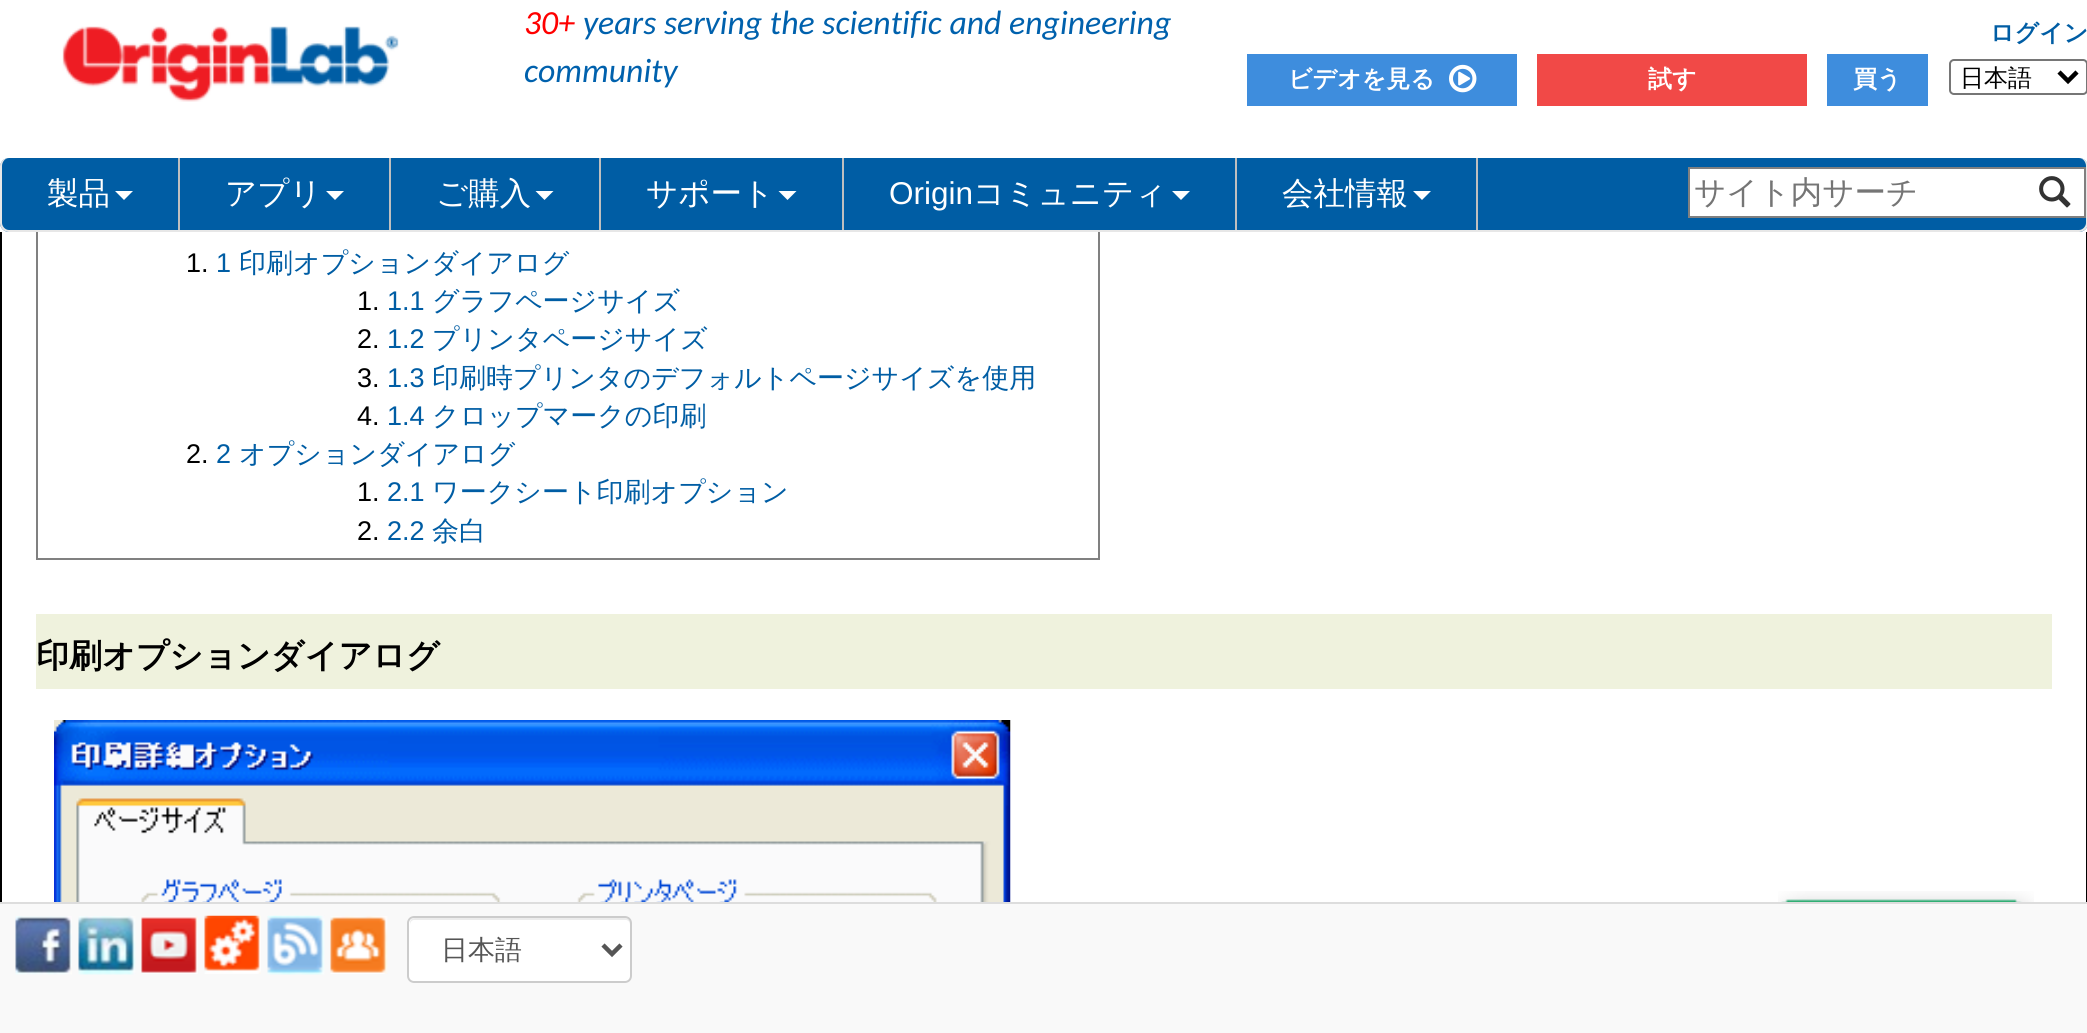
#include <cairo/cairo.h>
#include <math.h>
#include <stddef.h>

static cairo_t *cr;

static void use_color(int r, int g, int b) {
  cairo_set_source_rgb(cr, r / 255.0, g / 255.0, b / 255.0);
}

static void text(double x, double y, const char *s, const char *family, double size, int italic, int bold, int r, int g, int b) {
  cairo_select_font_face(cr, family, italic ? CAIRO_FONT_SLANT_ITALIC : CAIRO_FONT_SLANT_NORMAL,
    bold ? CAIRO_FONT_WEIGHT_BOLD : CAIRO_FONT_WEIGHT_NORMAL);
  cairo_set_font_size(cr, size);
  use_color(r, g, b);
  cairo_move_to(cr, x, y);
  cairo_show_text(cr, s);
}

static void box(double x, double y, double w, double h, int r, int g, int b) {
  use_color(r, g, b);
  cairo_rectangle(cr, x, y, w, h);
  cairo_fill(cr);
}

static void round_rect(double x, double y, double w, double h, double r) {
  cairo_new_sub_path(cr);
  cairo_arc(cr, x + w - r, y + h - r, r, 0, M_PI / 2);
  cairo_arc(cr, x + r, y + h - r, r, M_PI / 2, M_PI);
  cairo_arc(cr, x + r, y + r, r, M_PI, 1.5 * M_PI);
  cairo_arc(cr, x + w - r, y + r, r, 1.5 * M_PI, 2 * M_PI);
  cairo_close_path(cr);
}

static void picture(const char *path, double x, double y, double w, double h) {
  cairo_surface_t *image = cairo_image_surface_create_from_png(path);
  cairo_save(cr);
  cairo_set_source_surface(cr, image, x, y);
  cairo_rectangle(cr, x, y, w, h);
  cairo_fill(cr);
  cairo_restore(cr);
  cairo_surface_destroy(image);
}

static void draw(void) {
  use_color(255, 255, 255);
  cairo_paint(cr);
  cairo_rectangle(cr, 1, -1, 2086, 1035);
  use_color(0, 0, 0);
  cairo_stroke(cr);
  cairo_rectangle(cr, 37, 105, 1062, 454);
  use_color(128, 128, 128);
  cairo_stroke(cr);
  box(0, 0, 2087, 232, 255, 255, 255);
  picture("img_01.png", 62, 26, 337, 76);
  box(1247, 54, 270, 52, 62, 141, 221);
  picture("img_02.png", 1449, 64, 28, 29);
  box(1537, 54, 270, 52, 241, 73, 71);
  box(1827, 54, 101, 52, 62, 141, 221);
  round_rect(1950, 60, 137, 34, 4);
  use_color(118, 118, 118);
  cairo_stroke(cr);
  cairo_new_path(cr);
  cairo_move_to(cr, 2059, 72);
  cairo_line_to(cr, 2068, 81);
  cairo_line_to(cr, 2077, 72);
  use_color(0, 0, 0);
  cairo_set_line_width(cr, 4.5);
  cairo_stroke(cr);
  use_color(0, 93, 164);
  round_rect(0, 158, 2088, 74, 9);
  cairo_fill(cr);
  use_color(231, 231, 231);
  cairo_set_fill_rule(cr, CAIRO_FILL_RULE_EVEN_ODD);
  cairo_new_path(cr);
  cairo_move_to(cr, 9, 158);
  cairo_line_to(cr, 2079, 158);
  cairo_curve_to(cr, 2084, 158, 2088, 162, 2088, 166);
  cairo_line_to(cr, 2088, 223);
  cairo_curve_to(cr, 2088, 228, 2084, 232, 2079, 232);
  cairo_line_to(cr, 9, 232);
  cairo_curve_to(cr, 4, 232, 0, 228, 0, 223);
  cairo_line_to(cr, 0, 166);
  cairo_curve_to(cr, 0, 162, 4, 158, 9, 158);
  cairo_close_path(cr);
  cairo_move_to(cr, 9, 158);
  cairo_line_to(cr, 2079, 158);
  cairo_curve_to(cr, 2083, 158, 2086, 162, 2086, 166);
  cairo_line_to(cr, 2086, 223);
  cairo_curve_to(cr, 2086, 226, 2083, 230, 2079, 230);
  cairo_line_to(cr, 9, 230);
  cairo_curve_to(cr, 5, 230, 2, 226, 2, 223);
  cairo_line_to(cr, 2, 166);
  cairo_curve_to(cr, 2, 162, 5, 158, 9, 158);
  cairo_close_path(cr);
  cairo_fill(cr);
  box(178, 158, 2, 72, 191, 191, 191);
  use_color(255, 255, 255);
  cairo_set_fill_rule(cr, CAIRO_FILL_RULE_WINDING);
  cairo_new_path(cr);
  cairo_move_to(cr, 115, 191);
  cairo_line_to(cr, 133, 191);
  cairo_line_to(cr, 124, 200);
  cairo_close_path(cr);
  cairo_fill(cr);
  box(389, 158, 2, 72, 191, 191, 191);
  use_color(255, 255, 255);
  cairo_new_path(cr);
  cairo_move_to(cr, 326, 191);
  cairo_line_to(cr, 344, 191);
  cairo_line_to(cr, 335, 200);
  cairo_close_path(cr);
  cairo_fill(cr);
  box(599, 158, 2, 72, 191, 191, 191);
  use_color(255, 255, 255);
  cairo_new_path(cr);
  cairo_move_to(cr, 535.5, 191);
  cairo_line_to(cr, 553.5, 191);
  cairo_line_to(cr, 544.5, 200);
  cairo_close_path(cr);
  cairo_fill(cr);
  box(842, 158, 2, 72, 191, 191, 191);
  use_color(255, 255, 255);
  cairo_new_path(cr);
  cairo_move_to(cr, 778.5, 191);
  cairo_line_to(cr, 796.5, 191);
  cairo_line_to(cr, 787.5, 200);
  cairo_close_path(cr);
  cairo_fill(cr);
  box(1235, 158, 2, 72, 191, 191, 191);
  use_color(255, 255, 255);
  cairo_new_path(cr);
  cairo_move_to(cr, 1172, 191);
  cairo_line_to(cr, 1190, 191);
  cairo_line_to(cr, 1181, 200);
  cairo_close_path(cr);
  cairo_fill(cr);
  box(1476, 158, 2, 72, 191, 191, 191);
  use_color(255, 255, 255);
  cairo_new_path(cr);
  cairo_move_to(cr, 1413, 191);
  cairo_line_to(cr, 1431, 191);
  cairo_line_to(cr, 1422, 200);
  cairo_close_path(cr);
  cairo_fill(cr);
  box(1690, 169, 394, 47, 255, 255, 255);
  box(1688, 167, 398, 2, 128, 128, 128);
  box(1688, 216, 337, 2, 128, 128, 128);
  box(1688, 167, 2, 51, 128, 128, 128);
  box(2084, 167, 2, 51, 128, 128, 128);
  box(2025, 216, 61, 2, 128, 128, 128);
  picture("img_03.png", 2039, 176, 32, 32);
  box(36, 614, 2016, 75, 239, 242, 221);
  picture("img_04.png", 54, 720, 957, 182);
  picture("img_05.png", 1778, 891, 256, 11);
  box(0, 904, 2087, 129, 249, 249, 249);
  box(0, 902, 2087, 2, 221, 221, 221);
  picture("img_06.png", 15, 916, 57, 59);
  picture("img_07.png", 78, 916, 58, 59);
  picture("img_08.png", 141, 916, 57, 58);
  picture("img_09.png", 204, 915, 57, 59);
  picture("img_10.png", 267, 915, 58, 60);
  picture("img_11.png", 330, 916, 58, 58);
  use_color(255, 255, 255);
  round_rect(407, 916, 225, 67, 7);
  cairo_fill(cr);
  use_color(236, 236, 236);
  cairo_new_path(cr);
  cairo_move_to(cr, 414, 920);
  cairo_line_to(cr, 626, 920);
  cairo_curve_to(cr, 628, 920, 630, 922, 630, 925);
  cairo_line_to(cr, 630, 923);
  cairo_curve_to(cr, 630, 920, 628, 918, 625, 918);
  cairo_line_to(cr, 415, 918);
  cairo_curve_to(cr, 412, 918, 410, 920, 410, 923);
  cairo_line_to(cr, 410, 925);
  cairo_curve_to(cr, 410, 922, 412, 920, 414, 920);
  cairo_close_path(cr);
  cairo_fill(cr);
  round_rect(408, 917, 223, 65, 6);
  use_color(204, 204, 204);
  cairo_set_line_width(cr, 2);
  cairo_stroke(cr);
  cairo_new_path(cr);
  cairo_move_to(cr, 603, 945);
  cairo_line_to(cr, 612, 954);
  cairo_line_to(cr, 621, 945);
  use_color(85, 85, 85);
  cairo_set_line_width(cr, 4.5);
  cairo_stroke(cr);
  text(524, 34, "30+", "Carlito", 33.75, 1, 0, 255, 0, 0);
  text(583, 34, "years serving the scientific and engineering", "Carlito", 33.75, 1, 0, 0, 97, 173);
  text(524, 82, "community", "Carlito", 33.75, 1, 0, 0, 97, 173);
  text(1990, 41, "ログイン", "WenQuanYi Zen Hei", 24, 0, 1, 0, 93, 164);
  text(1288, 87, "ビデオを見る", "WenQuanYi Zen Hei", 24, 0, 1, 255, 255, 255);
  text(1648, 87, "試す", "WenQuanYi Zen Hei", 24, 0, 1, 255, 255, 255);
  text(1853, 87, "買う", "WenQuanYi Zen Hei", 24, 0, 1, 255, 255, 255);
  text(1960, 86, "日本語", "WenQuanYi Zen Hei Medium", 24, 0, 0, 0, 0, 0);
  text(47, 204, "製品", "WenQuanYi Zen Hei Medium", 31.5, 0, 0, 255, 255, 255);
  text(225, 204, "アプリ", "WenQuanYi Zen Hei Medium", 31.5, 0, 0, 255, 255, 255);
  text(436, 204, "ご購入", "WenQuanYi Zen Hei Medium", 31.5, 0, 0, 255, 255, 255);
  text(646, 204, "サポート", "WenQuanYi Zen Hei Medium", 31.5, 0, 0, 255, 255, 255);
  text(889, 204, "Origin", "Liberation Sans", 31.5, 0, 0, 255, 255, 255);
  text(973, 204, "コミュニティ", "WenQuanYi Zen Hei Medium", 31.5, 0, 0, 255, 255, 255);
  text(1282, 204, "会社情報", "WenQuanYi Zen Hei Medium", 31.5, 0, 0, 255, 255, 255);
  text(1694, 203, "サイト内サーチ", "WenQuanYi Zen Hei Medium", 31.5, 0, 0, 117, 117, 117);
  text(186, 272, "1.", "Liberation Sans", 27, 0, 0, 0, 0, 0);
  text(216, 272, "1", "Liberation Sans", 27, 0, 0, 0, 93, 164);
  text(239, 272, "印刷オプションダイアログ", "WenQuanYi Zen Hei Medium", 27, 0, 0, 0, 93, 164);
  text(357, 310, "1.", "Liberation Sans", 27, 0, 0, 0, 0, 0);
  text(387, 310, "1.1", "Liberation Sans", 27, 0, 0, 0, 93, 164);
  text(432, 310, "グラフページサイズ", "WenQuanYi Zen Hei Medium", 27, 0, 0, 0, 93, 164);
  text(357, 348, "2.", "Liberation Sans", 27, 0, 0, 0, 0, 0);
  text(387, 348, "1.2", "Liberation Sans", 27, 0, 0, 0, 93, 164);
  text(432, 348, "プリンタページサイズ", "WenQuanYi Zen Hei Medium", 27, 0, 0, 0, 93, 164);
  text(357, 387, "3.", "Liberation Sans", 27, 0, 0, 0, 0, 0);
  text(387, 387, "1.3", "Liberation Sans", 27, 0, 0, 0, 93, 164);
  text(432, 387, "印刷時プリンタのデフォルトページサイズを使用", "WenQuanYi Zen Hei Medium", 27, 0, 0, 0, 93, 164);
  text(357, 425, "4.", "Liberation Sans", 27, 0, 0, 0, 0, 0);
  text(387, 425, "1.4", "Liberation Sans", 27, 0, 0, 0, 93, 164);
  text(432, 425, "クロップマークの印刷", "WenQuanYi Zen Hei Medium", 27, 0, 0, 0, 93, 164);
  text(186, 463, "2.", "Liberation Sans", 27, 0, 0, 0, 0, 0);
  text(216, 463, "2", "Liberation Sans", 27, 0, 0, 0, 93, 164);
  text(239, 463, "オプションダイアログ", "WenQuanYi Zen Hei Medium", 27, 0, 0, 0, 93, 164);
  text(357, 501, "1.", "Liberation Sans", 27, 0, 0, 0, 0, 0);
  text(387, 501, "2.1", "Liberation Sans", 27, 0, 0, 0, 93, 164);
  text(432, 501, "ワークシート印刷オプション", "WenQuanYi Zen Hei Medium", 27, 0, 0, 0, 93, 164);
  text(357, 540, "2.", "Liberation Sans", 27, 0, 0, 0, 0, 0);
  text(387, 540, "2.2", "Liberation Sans", 27, 0, 0, 0, 93, 164);
  text(432, 540, "余白", "WenQuanYi Zen Hei Medium", 27, 0, 0, 0, 93, 164);
  text(36, 667, "印刷オプションダイアログ", "WenQuanYi Zen Hei", 33, 0, 1, 0, 0, 0);
  text(441, 959, "日本語", "WenQuanYi Zen Hei Medium", 27, 0, 0, 85, 85, 85);
}

int main(void) {
  cairo_surface_t *surface = cairo_image_surface_create(CAIRO_FORMAT_RGB24, 2087, 1033);
  cr = cairo_create(surface);
  cairo_font_options_t *options = cairo_font_options_create();
  cairo_font_options_set_hint_metrics(options, CAIRO_HINT_METRICS_OFF);
  cairo_font_options_set_hint_style(options, CAIRO_HINT_STYLE_NONE);
  cairo_set_font_options(cr, options);
  cairo_set_miter_limit(cr, 4);
  draw();
  cairo_surface_write_to_png(surface, "out.png");
  cairo_font_options_destroy(options);
  cairo_destroy(cr);
  cairo_surface_destroy(surface);
  return 0;
}
